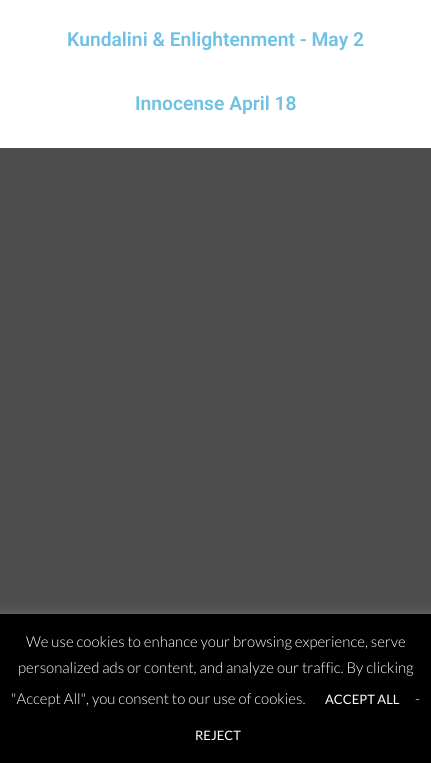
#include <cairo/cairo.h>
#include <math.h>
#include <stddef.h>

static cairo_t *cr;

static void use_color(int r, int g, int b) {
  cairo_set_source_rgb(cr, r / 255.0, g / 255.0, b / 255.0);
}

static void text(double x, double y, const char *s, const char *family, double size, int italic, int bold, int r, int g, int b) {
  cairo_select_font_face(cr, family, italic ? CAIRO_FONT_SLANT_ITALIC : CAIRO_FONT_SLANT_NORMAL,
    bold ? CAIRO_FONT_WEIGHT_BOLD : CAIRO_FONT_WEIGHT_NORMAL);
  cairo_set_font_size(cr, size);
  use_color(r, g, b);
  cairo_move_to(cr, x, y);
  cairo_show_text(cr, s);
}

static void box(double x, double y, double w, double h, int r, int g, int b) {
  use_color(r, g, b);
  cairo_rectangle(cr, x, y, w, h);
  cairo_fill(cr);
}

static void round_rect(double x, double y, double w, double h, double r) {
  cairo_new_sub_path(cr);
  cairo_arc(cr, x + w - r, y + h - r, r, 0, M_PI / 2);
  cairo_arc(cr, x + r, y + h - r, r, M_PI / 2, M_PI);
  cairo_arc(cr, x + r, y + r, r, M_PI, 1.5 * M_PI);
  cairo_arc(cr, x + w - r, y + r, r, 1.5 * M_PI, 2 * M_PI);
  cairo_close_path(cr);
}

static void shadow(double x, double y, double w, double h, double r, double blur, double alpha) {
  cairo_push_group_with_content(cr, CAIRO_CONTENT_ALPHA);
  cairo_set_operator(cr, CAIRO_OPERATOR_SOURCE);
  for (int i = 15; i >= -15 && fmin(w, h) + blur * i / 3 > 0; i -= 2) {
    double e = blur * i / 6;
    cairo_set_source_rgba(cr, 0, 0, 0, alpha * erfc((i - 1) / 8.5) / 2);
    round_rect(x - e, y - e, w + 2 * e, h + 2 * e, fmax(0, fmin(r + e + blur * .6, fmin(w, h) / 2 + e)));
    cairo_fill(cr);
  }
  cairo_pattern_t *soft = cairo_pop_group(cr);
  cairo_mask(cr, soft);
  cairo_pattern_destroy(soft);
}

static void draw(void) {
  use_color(77, 77, 77);
  cairo_paint(cr);
  box(0, 0, 431, 148, 255, 255, 255);
  use_color(172, 171, 171);
  shadow(0, 613, 431, 149, 0, 5, 0.3);
  box(0, 614, 431, 149, 0, 0, 0);
  text(67, 46, "Kundalini & Enlightenment - May 2", "Roboto SemiBold", 19.25, 0, 0, 110, 193, 228);
  text(135, 110, "Innocense April 18", "Roboto SemiBold", 19.25, 0, 0, 110, 193, 228);
  text(26, 647, "We use cookies to enhance your browsing experience, serve", "Lato Light", 15, 0, 0, 255, 255, 255);
  text(18, 673, "personalized ads or content, and analyze our traffic. By clicking", "Lato Light", 15, 0, 0, 255, 255, 255);
  text(11, 704, "\"Accept All\", you consent to our use of cookies.", "Lato Light", 15, 0, 0, 255, 255, 255);
  text(325, 704, "ACCEPT ALL", "Lato", 13, 0, 0, 255, 255, 255);
  text(415, 704, "-", "Lato Light", 15, 0, 0, 255, 255, 255);
  text(195, 740, "REJECT", "Lato", 13, 0, 0, 255, 255, 255);
}

int main(void) {
  cairo_surface_t *surface = cairo_image_surface_create(CAIRO_FORMAT_RGB24, 431, 763);
  cr = cairo_create(surface);
  cairo_font_options_t *options = cairo_font_options_create();
  cairo_font_options_set_hint_metrics(options, CAIRO_HINT_METRICS_OFF);
  cairo_font_options_set_hint_style(options, CAIRO_HINT_STYLE_NONE);
  cairo_set_font_options(cr, options);
  cairo_set_miter_limit(cr, 4);
  draw();
  cairo_surface_write_to_png(surface, "out.png");
  cairo_font_options_destroy(options);
  cairo_destroy(cr);
  cairo_surface_destroy(surface);
  return 0;
}
